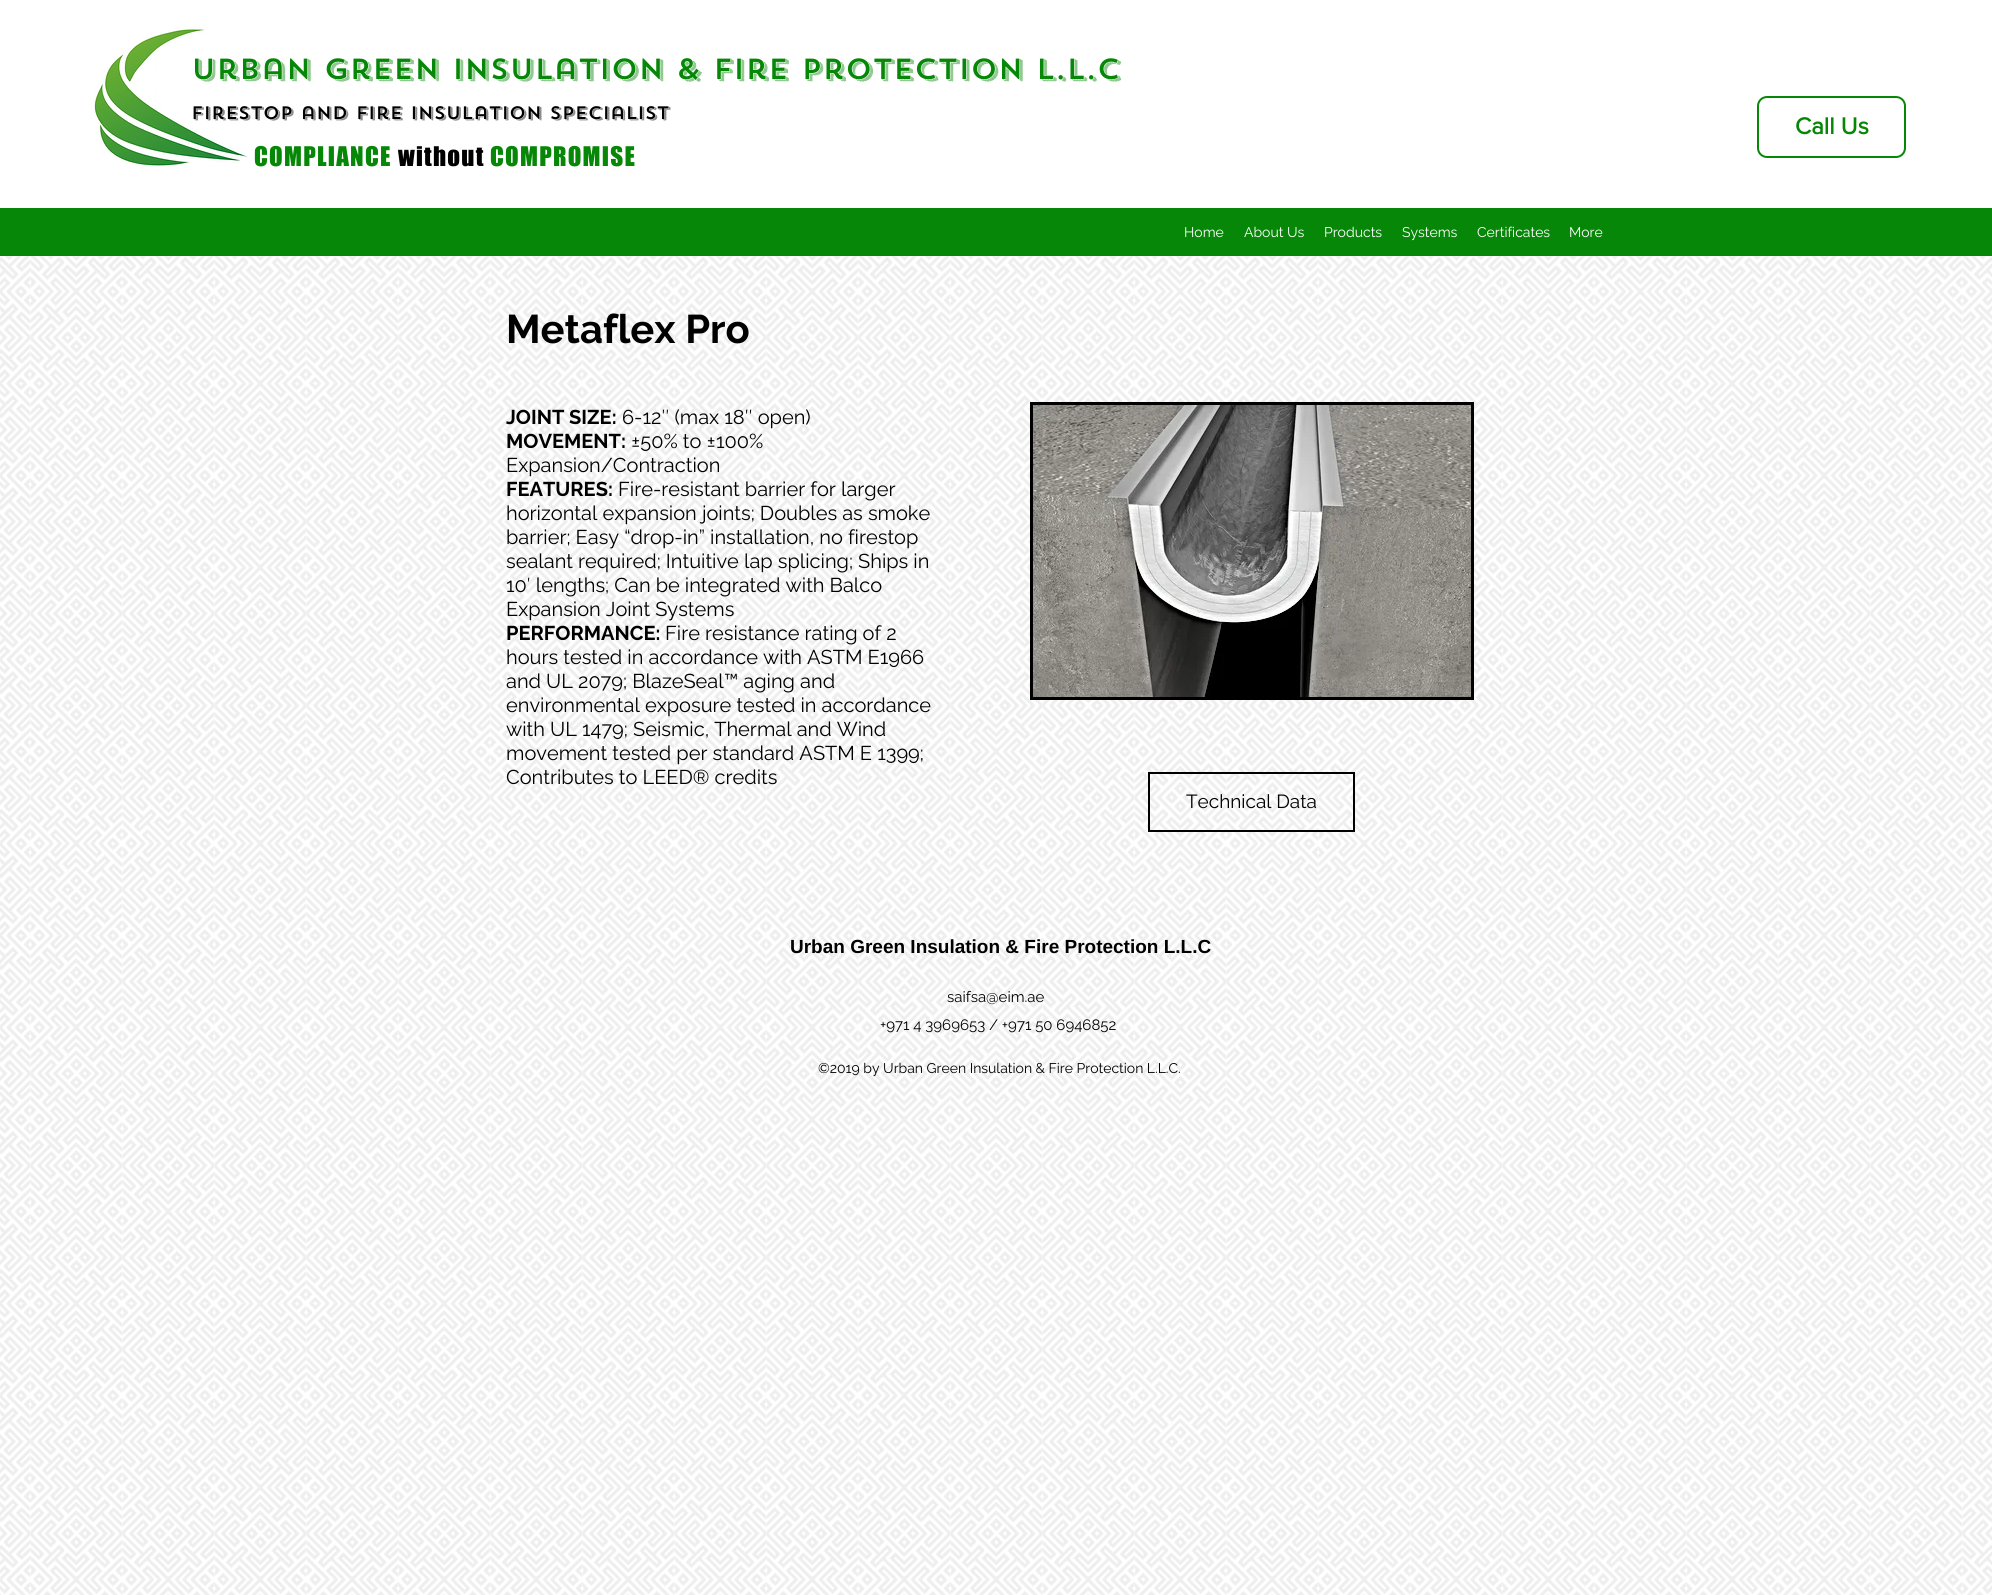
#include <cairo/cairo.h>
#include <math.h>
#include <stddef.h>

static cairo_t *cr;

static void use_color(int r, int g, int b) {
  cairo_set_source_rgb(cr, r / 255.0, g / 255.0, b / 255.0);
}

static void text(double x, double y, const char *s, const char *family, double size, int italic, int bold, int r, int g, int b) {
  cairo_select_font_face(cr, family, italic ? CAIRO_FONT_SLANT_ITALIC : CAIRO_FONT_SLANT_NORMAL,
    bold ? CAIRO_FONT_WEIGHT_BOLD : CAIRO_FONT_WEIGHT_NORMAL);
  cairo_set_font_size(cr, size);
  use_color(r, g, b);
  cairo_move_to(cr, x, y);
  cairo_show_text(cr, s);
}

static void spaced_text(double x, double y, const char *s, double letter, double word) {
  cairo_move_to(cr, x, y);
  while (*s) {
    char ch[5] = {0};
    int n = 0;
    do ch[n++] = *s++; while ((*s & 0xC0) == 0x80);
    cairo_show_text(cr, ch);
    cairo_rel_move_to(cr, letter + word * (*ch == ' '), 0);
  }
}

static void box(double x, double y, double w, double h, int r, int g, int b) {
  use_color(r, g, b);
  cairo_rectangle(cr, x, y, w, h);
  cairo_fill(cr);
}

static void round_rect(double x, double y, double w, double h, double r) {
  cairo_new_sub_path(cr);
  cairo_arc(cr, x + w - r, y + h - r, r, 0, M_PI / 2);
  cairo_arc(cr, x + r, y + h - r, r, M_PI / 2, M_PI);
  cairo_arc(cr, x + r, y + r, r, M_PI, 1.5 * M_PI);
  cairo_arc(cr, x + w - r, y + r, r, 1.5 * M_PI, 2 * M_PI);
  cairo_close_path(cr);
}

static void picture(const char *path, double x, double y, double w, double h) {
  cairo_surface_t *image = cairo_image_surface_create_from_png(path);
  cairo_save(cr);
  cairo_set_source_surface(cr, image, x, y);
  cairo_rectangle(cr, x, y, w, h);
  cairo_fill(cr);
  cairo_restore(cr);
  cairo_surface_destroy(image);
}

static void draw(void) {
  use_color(255, 255, 255);
  cairo_paint(cr);
  picture("img_01.png", 94, 27, 154, 140);
  round_rect(1758, 97, 147, 60, 9);
  use_color(7, 135, 7);
  cairo_stroke(cr);
  box(0, 208, 1992, 48, 7, 135, 7);
  picture("img_03.png", 0, 256, 1992, 1339);
  cairo_rectangle(cr, 1031.5, 403.5, 441, 295);
  use_color(0, 0, 0);
  cairo_set_line_width(cr, 3);
  cairo_stroke(cr);
  picture("img_02.png", 1033, 405, 438, 292);
  cairo_rectangle(cr, 1149, 773, 205, 58);
  cairo_set_line_width(cr, 2);
  cairo_stroke(cr);
  text(191, 79, "Urban Green Insulation & Fire Protection L.L.C", "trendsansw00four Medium", 29, 0, 0, 7, 135, 7);
  text(191, 119, "Firestop and Fire Insulation Specialist", "trendsansw00four Medium", 18, 0, 0, 0, 0, 0);
  cairo_select_font_face(cr, "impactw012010", CAIRO_FONT_SLANT_NORMAL, CAIRO_FONT_WEIGHT_NORMAL);
  cairo_set_font_size(cr, 25);
  use_color(7, 135, 7);
  spaced_text(254, 166, "COMPLIANCE", 1.25, 0);
  use_color(0, 0, 0);
  spaced_text(398, 166, "without", 1.25, 0);
  use_color(7, 135, 7);
  spaced_text(490, 166, "COMPROMISE", 1.25, 0);
  text(1795, 134, "Call Us", "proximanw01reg", 24, 0, 1, 7, 135, 7);
  text(1184, 237, "Home", "Raleway", 14, 0, 0, 255, 255, 255);
  text(1244, 237, "About Us", "Raleway", 14, 0, 0, 255, 255, 255);
  text(1324, 237, "Products", "Raleway", 14, 0, 0, 255, 255, 255);
  text(1402, 237, "Systems", "Raleway", 14, 0, 0, 255, 255, 255);
  text(1477, 237, "Certificates", "Raleway", 14, 0, 0, 255, 255, 255);
  text(1569, 237, "More", "Raleway", 14, 0, 0, 255, 255, 255);
  text(506, 343, "Metaflex Pro", "Raleway", 40, 0, 1, 0, 0, 0);
  text(506, 424, "JOINT SIZE:", "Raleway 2", 20, 0, 1, 0, 0, 0);
  text(622, 424, "6-12″ (max 18″ open)", "Raleway", 20, 0, 0, 0, 0, 0);
  text(506, 448, "MOVEMENT:", "Raleway 2", 20, 0, 1, 0, 0, 0);
  text(631, 448, "±50% to ±100%", "Raleway", 20, 0, 0, 0, 0, 0);
  text(506, 472, "Expansion/Contraction", "Raleway", 20, 0, 0, 0, 0, 0);
  text(506, 496, "FEATURES:", "Raleway 2", 20, 0, 1, 0, 0, 0);
  text(618, 496, "Fire-resistant barrier for larger", "Raleway", 20, 0, 0, 0, 0, 0);
  text(506, 520, "horizontal expansion joints; Doubles as smoke", "Raleway", 20, 0, 0, 0, 0, 0);
  text(506, 544, "barrier; Easy “drop-in” installation, no firestop", "Raleway", 20, 0, 0, 0, 0, 0);
  text(506, 568, "sealant required; Intuitive lap splicing; Ships in", "Raleway", 20, 0, 0, 0, 0, 0);
  text(506, 592, "10′ lengths; Can be integrated with Balco", "Raleway", 20, 0, 0, 0, 0, 0);
  text(506, 616, "Expansion Joint Systems", "Raleway", 20, 0, 0, 0, 0, 0);
  text(506, 640, "PERFORMANCE:", "Raleway 2", 20, 0, 1, 0, 0, 0);
  text(665, 640, "Fire resistance rating of 2", "Raleway", 20, 0, 0, 0, 0, 0);
  text(506, 664, "hours tested in accordance with ASTM E1966", "Raleway", 20, 0, 0, 0, 0, 0);
  text(506, 688, "and UL 2079; BlazeSeal™ aging and", "Raleway", 20, 0, 0, 0, 0, 0);
  text(506, 712, "environmental exposure tested in accordance", "Raleway", 20, 0, 0, 0, 0, 0);
  text(506, 736, "with UL 1479; Seismic, Thermal and Wind", "Raleway", 20, 0, 0, 0, 0, 0);
  text(506, 760, "movement tested per standard ASTM E 1399;", "Raleway", 20, 0, 0, 0, 0, 0);
  text(506, 784, "Contributes to LEED® credits", "Raleway", 20, 0, 0, 0, 0, 0);
  text(1186, 808, "Technical Data", "Raleway", 19, 0, 0, 0, 0, 0);
  text(790, 953, "Urban Green Insulation & Fire Protection L.L.C", "Liberation Sans", 19, 0, 1, 0, 0, 0);
  text(947, 1002, "saifsa@eim.ae", "Raleway", 15, 0, 0, 0, 0, 0);
  text(880, 1030, "+971 4 3969653 / +971 50 6946852", "Raleway", 15, 0, 0, 0, 0, 0);
  text(818, 1073, "©2019 by Urban Green Insulation & Fire Protection L.L.C.", "Raleway", 14, 0, 0, 0, 0, 0);
}

int main(void) {
  cairo_surface_t *surface = cairo_image_surface_create(CAIRO_FORMAT_RGB24, 1992, 1595);
  cr = cairo_create(surface);
  cairo_font_options_t *options = cairo_font_options_create();
  cairo_font_options_set_hint_metrics(options, CAIRO_HINT_METRICS_OFF);
  cairo_font_options_set_hint_style(options, CAIRO_HINT_STYLE_NONE);
  cairo_set_font_options(cr, options);
  cairo_set_miter_limit(cr, 4);
  draw();
  cairo_surface_write_to_png(surface, "out.png");
  cairo_font_options_destroy(options);
  cairo_destroy(cr);
  cairo_surface_destroy(surface);
  return 0;
}
